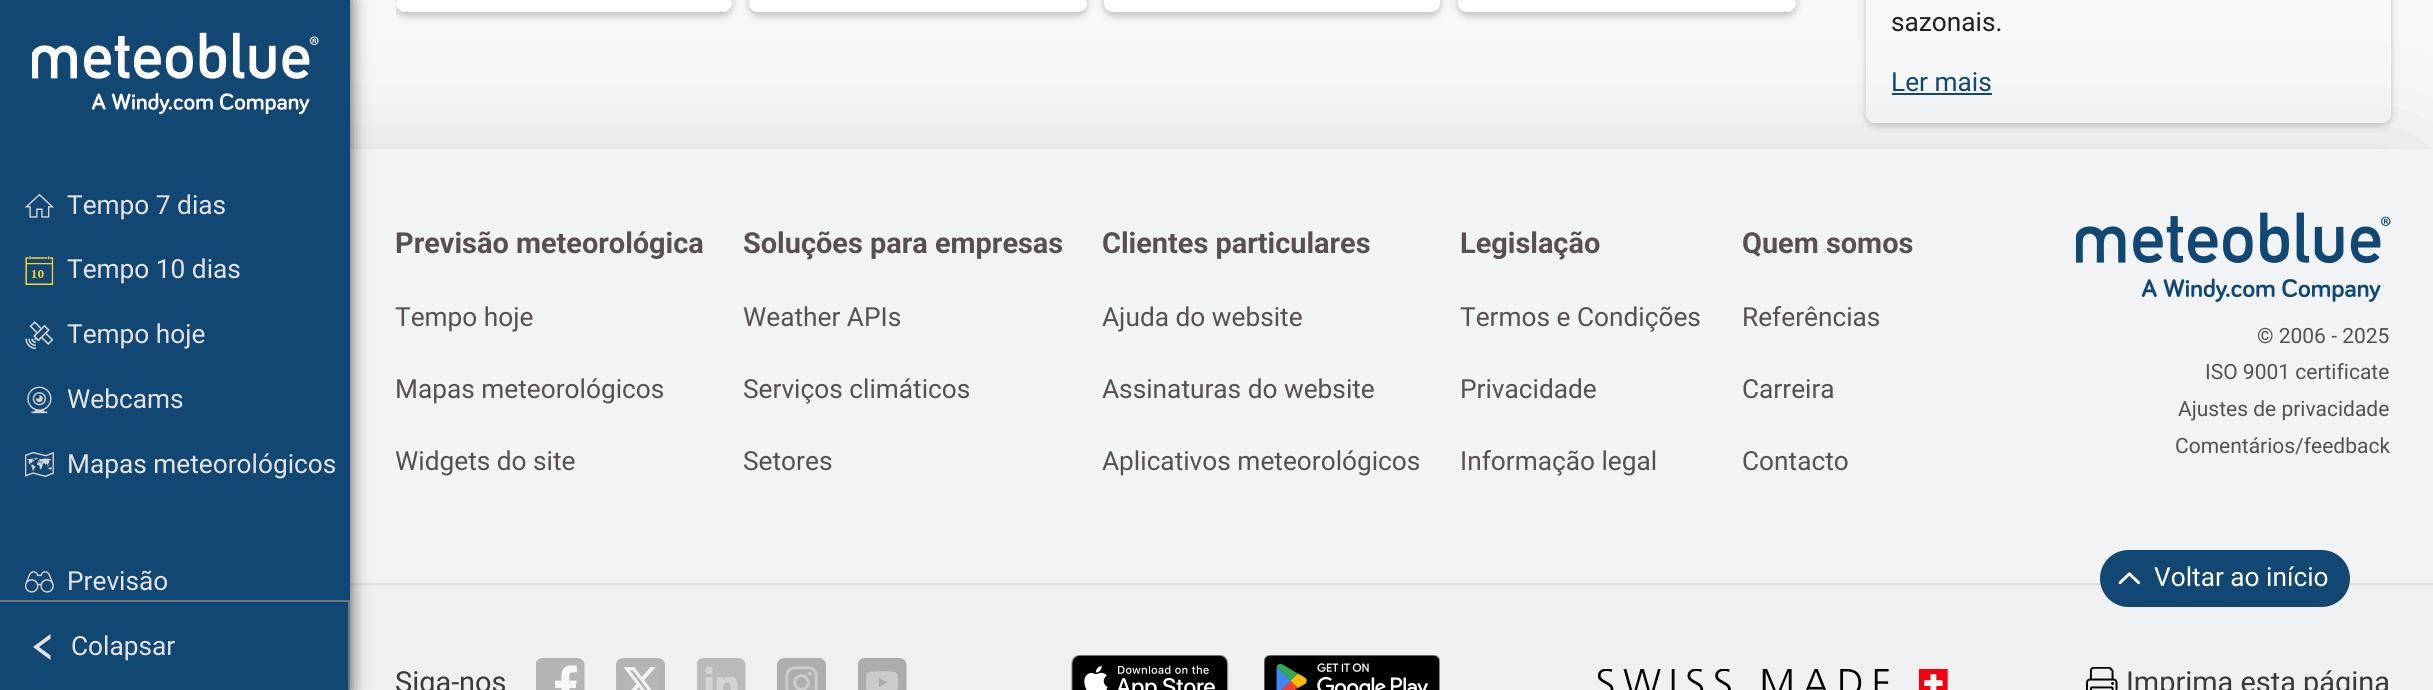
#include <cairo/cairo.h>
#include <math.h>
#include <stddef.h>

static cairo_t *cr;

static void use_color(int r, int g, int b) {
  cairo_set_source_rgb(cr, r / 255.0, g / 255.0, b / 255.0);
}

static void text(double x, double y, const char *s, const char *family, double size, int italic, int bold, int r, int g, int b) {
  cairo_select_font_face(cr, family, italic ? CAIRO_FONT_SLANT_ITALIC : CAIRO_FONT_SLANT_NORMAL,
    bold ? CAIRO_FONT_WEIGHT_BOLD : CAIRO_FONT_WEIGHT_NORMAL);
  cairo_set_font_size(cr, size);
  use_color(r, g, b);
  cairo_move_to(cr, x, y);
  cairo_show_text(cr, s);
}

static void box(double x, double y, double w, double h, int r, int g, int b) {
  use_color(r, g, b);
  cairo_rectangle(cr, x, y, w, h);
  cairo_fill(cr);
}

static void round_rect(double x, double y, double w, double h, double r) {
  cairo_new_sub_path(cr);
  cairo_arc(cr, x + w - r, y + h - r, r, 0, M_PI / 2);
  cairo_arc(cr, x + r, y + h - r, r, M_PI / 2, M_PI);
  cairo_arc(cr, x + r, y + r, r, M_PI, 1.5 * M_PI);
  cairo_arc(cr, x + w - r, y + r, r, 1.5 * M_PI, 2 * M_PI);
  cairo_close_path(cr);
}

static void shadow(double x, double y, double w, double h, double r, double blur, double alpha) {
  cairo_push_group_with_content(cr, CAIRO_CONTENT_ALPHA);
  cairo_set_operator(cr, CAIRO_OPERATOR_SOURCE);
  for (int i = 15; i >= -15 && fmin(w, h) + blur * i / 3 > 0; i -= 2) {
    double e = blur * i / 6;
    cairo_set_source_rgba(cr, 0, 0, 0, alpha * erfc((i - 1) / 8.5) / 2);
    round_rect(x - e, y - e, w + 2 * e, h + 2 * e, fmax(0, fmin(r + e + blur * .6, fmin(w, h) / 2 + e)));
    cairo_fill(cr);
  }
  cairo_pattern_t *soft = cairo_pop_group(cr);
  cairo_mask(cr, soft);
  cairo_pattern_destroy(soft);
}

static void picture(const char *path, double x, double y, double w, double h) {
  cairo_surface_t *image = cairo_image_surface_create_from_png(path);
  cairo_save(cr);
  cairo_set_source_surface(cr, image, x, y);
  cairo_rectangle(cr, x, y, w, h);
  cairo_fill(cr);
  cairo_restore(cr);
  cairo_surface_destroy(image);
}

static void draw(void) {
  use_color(248, 248, 248);
  cairo_paint(cr);
  cairo_save(cr);
  cairo_rectangle(cr, 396, 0, 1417, 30);
  cairo_clip(cr);
  use_color(197, 192, 192);
  shadow(396, -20, 336, 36, 9, 3.5, 1);
  cairo_restore(cr);
  cairo_save(cr);
  cairo_set_fill_rule(cr, CAIRO_FILL_RULE_EVEN_ODD);
  cairo_new_path(cr);
  cairo_move_to(cr, 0, 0);
  cairo_line_to(cr, 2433, 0);
  cairo_line_to(cr, 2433, 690);
  cairo_line_to(cr, 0, 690);
  cairo_close_path(cr);
  cairo_move_to(cr, 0, 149);
  cairo_line_to(cr, 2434, 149);
  cairo_line_to(cr, 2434, 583);
  cairo_line_to(cr, 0, 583);
  cairo_close_path(cr);
  cairo_clip(cr);
  use_color(196, 205, 209);
  shadow(26, 175, 2382, 382, 0, 61, 1);
  cairo_restore(cr);
  use_color(255, 255, 255);
  round_rect(396, -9, 336, 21, 9);
  cairo_fill(cr);
  use_color(197, 192, 192);
  shadow(749, -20, 338, 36, 9, 3.5, 1);
  use_color(255, 255, 255);
  round_rect(749, -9, 338, 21, 9);
  cairo_fill(cr);
  use_color(197, 192, 192);
  shadow(1104, -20, 336, 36, 9, 3.5, 1);
  use_color(255, 255, 255);
  round_rect(1104, -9, 336, 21, 9);
  cairo_fill(cr);
  use_color(197, 192, 192);
  shadow(1458, -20, 338, 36, 9, 3.5, 1);
  use_color(255, 255, 255);
  round_rect(1458, -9, 338, 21, 9);
  cairo_fill(cr);
  cairo_save(cr);
  cairo_set_fill_rule(cr, CAIRO_FILL_RULE_EVEN_ODD);
  cairo_new_path(cr);
  cairo_move_to(cr, 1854, 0);
  cairo_line_to(cr, 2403, 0);
  cairo_line_to(cr, 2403, 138);
  cairo_line_to(cr, 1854, 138);
  cairo_close_path(cr);
  cairo_move_to(cr, 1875, -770);
  cairo_line_to(cr, 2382, -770);
  cairo_curve_to(cr, 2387, -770, 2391, -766, 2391, -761);
  cairo_line_to(cr, 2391, 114);
  cairo_curve_to(cr, 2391, 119, 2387, 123, 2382, 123);
  cairo_line_to(cr, 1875, 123);
  cairo_curve_to(cr, 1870, 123, 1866, 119, 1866, 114);
  cairo_line_to(cr, 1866, -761);
  cairo_curve_to(cr, 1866, -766, 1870, -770, 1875, -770);
  cairo_close_path(cr);
  cairo_clip(cr);
  use_color(197, 192, 192);
  shadow(1866, -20, 525, 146, 9, 3.5, 1);
  cairo_restore(cr);
  box(1892, 93, 100, 2, 18, 70, 115);
  cairo_set_source_rgba(cr, 0.933, 0.941, 0.945, 0.67);
  cairo_rectangle(cr, 350, 149, 2083, 434);
  cairo_fill(cr);
  box(350, 585, 2083, 105, 238, 240, 241);
  box(350, 583, 2083, 2, 221, 225, 227);
  use_color(35, 35, 45);
  shadow(0, 0, 350, 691, 0, 9, 0.8);
  box(0, 0, 350, 600, 18, 70, 115);
  picture("img_01.png", 32, 32, 287, 83);
  picture("img_02.png", 25, 193, 29, 25);
  picture("img_03.png", 25, 256, 29, 29);
  picture("img_04.png", 25, 321, 29, 29);
  picture("img_05.png", 27, 386, 25, 28);
  picture("img_06.png", 25, 451, 29, 26);
  picture("img_07.png", 25, 571, 29, 22);
  box(348, 600, 2, 90, 107, 120, 127);
  box(0, 602, 348, 88, 18, 70, 115);
  box(0, 600, 348, 2, 107, 120, 127);
  use_color(229, 229, 229);
  cairo_new_path(cr);
  cairo_move_to(cr, 33, 647);
  cairo_line_to(cr, 50.5, 634);
  cairo_line_to(cr, 50.5, 638.5);
  cairo_line_to(cr, 39, 647);
  cairo_line_to(cr, 50.5, 655.5);
  cairo_line_to(cr, 50.5, 660);
  cairo_close_path(cr);
  cairo_fill(cr);
  picture("img_08.png", 2076, 212, 315, 90);
  use_color(18, 70, 115);
  round_rect(2100, 550, 250, 57, 28.5);
  cairo_fill(cr);
  picture("img_09.png", 2118, 572, 23, 13);
  picture("img_10.png", 536, 658, 49, 32);
  picture("img_11.png", 616, 658, 49, 32);
  picture("img_12.png", 697, 658, 49, 32);
  picture("img_13.png", 777, 658, 49, 32);
  picture("img_14.png", 858, 658, 49, 32);
  picture("img_15.png", 1071, 655, 158, 35);
  picture("img_16.png", 1264, 655, 176, 35);
  picture("img_17.png", 1598, 669, 350, 21);
  picture("img_18.png", 2086, 667, 32, 23);
  text(1891, 31, "sazonais.", "Roboto", 26.25, 0, 0, 35, 31, 32);
  text(1891, 91, "Ler mais", "Roboto", 26.25, 0, 0, 18, 70, 115);
  text(67, 214, "Tempo 7 dias", "Roboto", 26.25, 0, 0, 229, 229, 229);
  text(67, 278, "Tempo 10 dias", "Roboto", 26.25, 0, 0, 229, 229, 229);
  text(67, 343, "Tempo hoje", "Roboto", 26.25, 0, 0, 229, 229, 229);
  text(67, 408, "Webcams", "Roboto", 26.25, 0, 0, 229, 229, 229);
  text(67, 473, "Mapas meteorológicos", "Roboto", 26.25, 0, 0, 229, 229, 229);
  text(67, 590, "Previsão", "Roboto", 26.25, 0, 0, 229, 229, 229);
  text(71, 655, "Colapsar", "Roboto", 26.25, 0, 0, 229, 229, 229);
  text(395, 253, "Previsão meteorológica", "Roboto", 28.9, 0, 1, 89, 79, 81);
  text(395, 326, "Tempo hoje", "Roboto", 26.25, 0, 0, 89, 79, 81);
  text(395, 398, "Mapas meteorológicos", "Roboto", 26.25, 0, 0, 89, 79, 81);
  text(395, 470, "Widgets do site", "Roboto", 26.25, 0, 0, 89, 79, 81);
  text(743, 253, "Soluções para empresas", "Roboto", 28.9, 0, 1, 89, 79, 81);
  text(743, 326, "Weather APIs", "Roboto", 26.25, 0, 0, 89, 79, 81);
  text(743, 398, "Serviços climáticos", "Roboto", 26.25, 0, 0, 89, 79, 81);
  text(743, 470, "Setores", "Roboto", 26.25, 0, 0, 89, 79, 81);
  text(1102, 253, "Clientes particulares", "Roboto", 28.9, 0, 1, 89, 79, 81);
  text(1102, 326, "Ajuda do website", "Roboto", 26.25, 0, 0, 89, 79, 81);
  text(1102, 398, "Assinaturas do website", "Roboto", 26.25, 0, 0, 89, 79, 81);
  text(1102, 470, "Aplicativos meteorológicos", "Roboto", 26.25, 0, 0, 89, 79, 81);
  text(1460, 253, "Legislação", "Roboto", 28.9, 0, 1, 89, 79, 81);
  text(1460, 326, "Termos e Condições", "Roboto", 26.25, 0, 0, 89, 79, 81);
  text(1460, 398, "Privacidade", "Roboto", 26.25, 0, 0, 89, 79, 81);
  text(1460, 470, "Informação legal", "Roboto", 26.25, 0, 0, 89, 79, 81);
  text(1742, 253, "Quem somos", "Roboto", 28.9, 0, 1, 89, 79, 81);
  text(1742, 326, "Referências", "Roboto", 26.25, 0, 0, 89, 79, 81);
  text(1742, 398, "Carreira", "Roboto", 26.25, 0, 0, 89, 79, 81);
  text(1742, 470, "Contacto", "Roboto", 26.25, 0, 0, 89, 79, 81);
  text(2257, 343, "© 2006 - 2025", "Roboto", 21, 0, 0, 89, 79, 81);
  text(2205, 379, "ISO 9001 certificate", "Roboto", 21, 0, 0, 89, 79, 81);
  text(2178, 416, "Ajustes de privacidade", "Roboto", 21, 0, 0, 89, 79, 81);
  text(2175, 453, "Comentários/feedback", "Roboto", 21, 0, 0, 89, 79, 81);
  text(2154, 586, "Voltar ao início", "Roboto", 26.25, 0, 0, 255, 255, 255);
  text(395, 692, "Siga-nos", "Roboto", 28.9, 0, 0, 62, 55, 57);
  text(2126, 692, "Imprima esta página", "Roboto", 28.9, 0, 0, 62, 55, 57);
}

int main(void) {
  cairo_surface_t *surface = cairo_image_surface_create(CAIRO_FORMAT_RGB24, 2433, 690);
  cr = cairo_create(surface);
  cairo_font_options_t *options = cairo_font_options_create();
  cairo_font_options_set_hint_metrics(options, CAIRO_HINT_METRICS_OFF);
  cairo_font_options_set_hint_style(options, CAIRO_HINT_STYLE_NONE);
  cairo_set_font_options(cr, options);
  cairo_set_miter_limit(cr, 4);
  draw();
  cairo_surface_write_to_png(surface, "out.png");
  cairo_font_options_destroy(options);
  cairo_destroy(cr);
  cairo_surface_destroy(surface);
  return 0;
}
